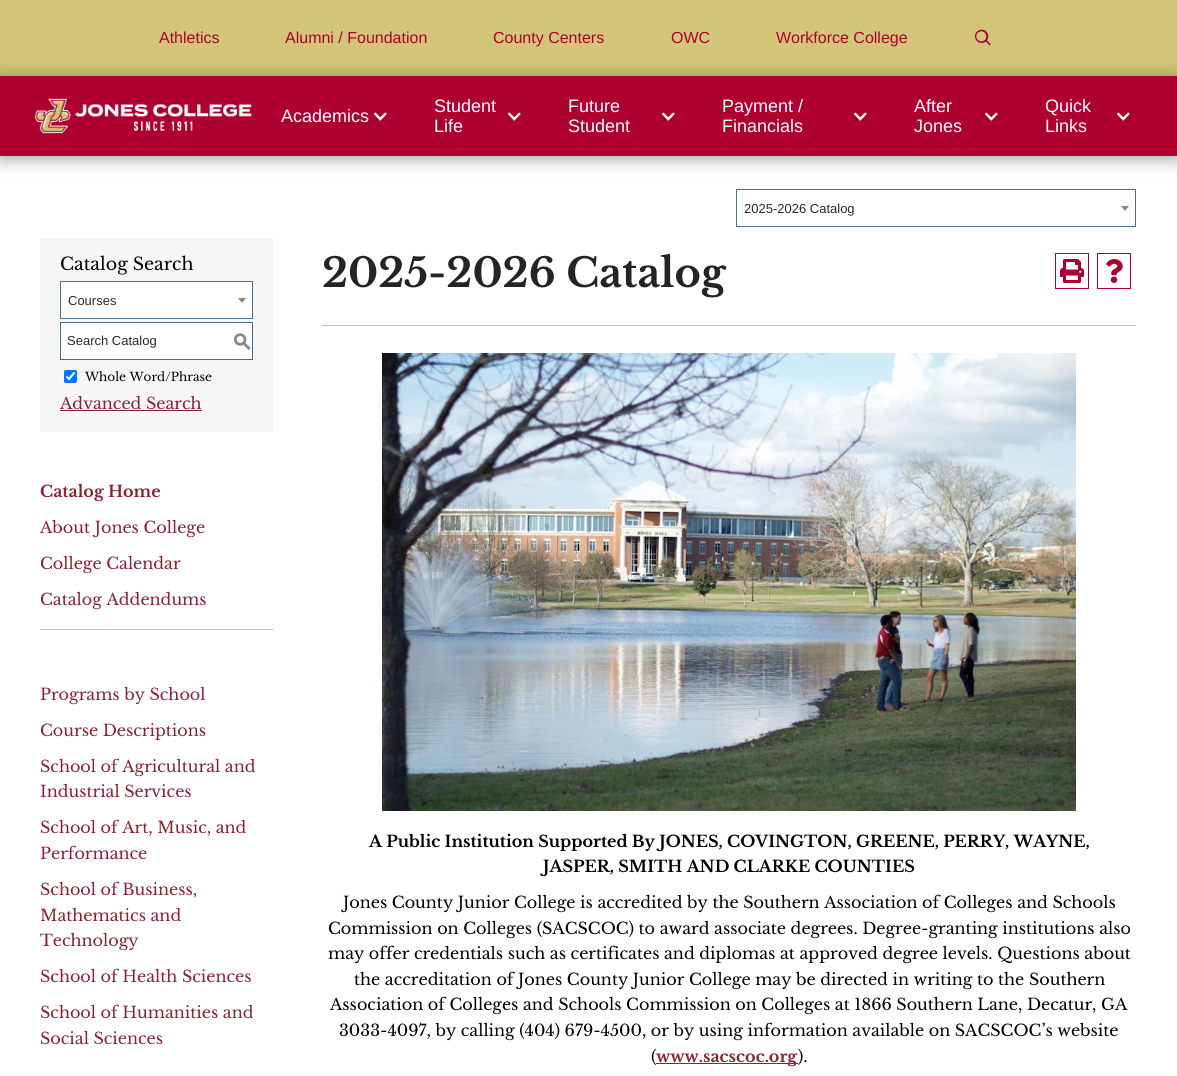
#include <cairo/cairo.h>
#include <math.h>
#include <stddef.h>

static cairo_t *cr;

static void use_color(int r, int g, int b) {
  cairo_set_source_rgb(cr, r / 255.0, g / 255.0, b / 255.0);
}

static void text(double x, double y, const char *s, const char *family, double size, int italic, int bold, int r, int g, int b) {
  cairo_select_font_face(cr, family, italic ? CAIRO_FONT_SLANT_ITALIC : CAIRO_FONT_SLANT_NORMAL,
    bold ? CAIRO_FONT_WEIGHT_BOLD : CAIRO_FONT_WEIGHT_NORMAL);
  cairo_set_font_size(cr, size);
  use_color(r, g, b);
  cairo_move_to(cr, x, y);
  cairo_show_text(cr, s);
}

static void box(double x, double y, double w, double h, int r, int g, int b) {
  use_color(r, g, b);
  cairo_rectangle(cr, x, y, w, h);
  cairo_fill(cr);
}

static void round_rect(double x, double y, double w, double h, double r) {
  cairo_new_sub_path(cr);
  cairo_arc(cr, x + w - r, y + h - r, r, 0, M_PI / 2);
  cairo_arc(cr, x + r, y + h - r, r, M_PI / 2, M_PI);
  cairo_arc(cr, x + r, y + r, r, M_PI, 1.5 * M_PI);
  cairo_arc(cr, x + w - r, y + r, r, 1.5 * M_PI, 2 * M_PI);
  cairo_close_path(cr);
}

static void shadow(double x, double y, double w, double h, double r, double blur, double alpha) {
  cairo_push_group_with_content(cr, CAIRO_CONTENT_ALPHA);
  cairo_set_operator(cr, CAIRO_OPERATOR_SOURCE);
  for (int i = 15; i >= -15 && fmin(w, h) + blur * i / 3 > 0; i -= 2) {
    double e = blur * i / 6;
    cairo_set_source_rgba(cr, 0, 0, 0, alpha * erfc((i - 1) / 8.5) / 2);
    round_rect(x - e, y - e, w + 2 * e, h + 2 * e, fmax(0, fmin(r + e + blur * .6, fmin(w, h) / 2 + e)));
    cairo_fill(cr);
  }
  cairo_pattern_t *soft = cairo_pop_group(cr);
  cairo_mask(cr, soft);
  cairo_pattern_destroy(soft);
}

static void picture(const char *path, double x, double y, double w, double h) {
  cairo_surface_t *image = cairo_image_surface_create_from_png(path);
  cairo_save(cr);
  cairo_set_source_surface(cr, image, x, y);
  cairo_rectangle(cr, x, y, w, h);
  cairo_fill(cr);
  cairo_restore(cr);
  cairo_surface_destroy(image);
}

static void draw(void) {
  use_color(255, 255, 255);
  cairo_paint(cr);
  box(0, 0, 1177, 76, 211, 198, 120);
  picture("img_01.png", 975, 29, 16, 17);
  use_color(0, 0, 0);
  shadow(0, 78, 1177, 80, 0, 9, 0.4);
  box(0, 76, 1177, 80, 174, 0, 48);
  picture("img_02.png", 34, 98, 218, 36);
  picture("img_03.png", 373, 112, 14, 9);
  picture("img_03.png", 507, 112, 14, 9);
  picture("img_03.png", 661, 112, 14, 9);
  picture("img_03.png", 853, 112, 14, 9);
  picture("img_03.png", 984, 112, 14, 9);
  picture("img_03.png", 1116, 112, 14, 9);
  cairo_rectangle(cr, 736.5, 189.5, 399, 37);
  use_color(77, 110, 141);
  cairo_set_line_width(cr, 1);
  cairo_stroke(cr);
  use_color(136, 136, 136);
  cairo_new_path(cr);
  cairo_move_to(cr, 1121, 206);
  cairo_line_to(cr, 1129, 206);
  cairo_line_to(cr, 1125, 211);
  cairo_close_path(cr);
  cairo_fill(cr);
  box(40, 238, 233, 194, 246, 246, 246);
  use_color(255, 255, 255);
  cairo_rectangle(cr, 60.5, 281.5, 192, 37);
  cairo_fill_preserve(cr);
  use_color(77, 110, 141);
  cairo_stroke(cr);
  use_color(136, 136, 136);
  cairo_new_path(cr);
  cairo_move_to(cr, 238, 298);
  cairo_line_to(cr, 246, 298);
  cairo_line_to(cr, 242, 303);
  cairo_close_path(cr);
  cairo_fill(cr);
  use_color(255, 255, 255);
  cairo_rectangle(cr, 60.5, 322.5, 192, 37);
  cairo_fill_preserve(cr);
  use_color(74, 107, 138);
  cairo_stroke(cr);
  use_color(0, 117, 255);
  round_rect(64, 370, 13, 13, 2);
  cairo_fill(cr);
  cairo_new_path(cr);
  cairo_move_to(cr, 66.5, 376.5);
  cairo_line_to(cr, 69, 379);
  cairo_line_to(cr, 74.5, 372.5);
  use_color(255, 255, 255);
  cairo_set_line_width(cr, 2.1);
  cairo_stroke(cr);
  box(60, 410, 142, 1, 138, 36, 50);
  box(40, 629, 233, 1, 191, 191, 191);
  cairo_rectangle(cr, 1055.5, 253.5, 33, 35);
  use_color(174, 0, 48);
  cairo_set_line_width(cr, 1);
  cairo_stroke(cr);
  picture("img_04.png", 1060, 259, 24, 24);
  cairo_rectangle(cr, 1097.5, 253.5, 33, 35);
  cairo_stroke(cr);
  picture("img_05.png", 1106, 259, 17, 24);
  box(322, 325, 814, 1, 191, 191, 191);
  picture("img_06.png", 382, 353, 694, 458);
  text(159, 43, "Athletics", "Liberation Sans", 16, 0, 0, 174, 0, 48);
  text(285, 43, "Alumni / Foundation", "Liberation Sans", 16, 0, 0, 174, 0, 48);
  text(493, 43, "County Centers", "Liberation Sans", 16, 0, 0, 174, 0, 48);
  text(671, 43, "OWC", "Liberation Sans", 16, 0, 0, 174, 0, 48);
  text(776, 43, "Workforce College", "Liberation Sans", 16, 0, 0, 174, 0, 48);
  text(281, 122, "Academics", "Liberation Sans", 18, 0, 0, 255, 255, 255);
  text(434, 112, "Student", "Liberation Sans", 18, 0, 0, 255, 255, 255);
  text(434, 132, "Life", "Liberation Sans", 18, 0, 0, 255, 255, 255);
  text(568, 112, "Future", "Liberation Sans", 18, 0, 0, 255, 255, 255);
  text(568, 132, "Student", "Liberation Sans", 18, 0, 0, 255, 255, 255);
  text(722, 112, "Payment /", "Liberation Sans", 18, 0, 0, 255, 255, 255);
  text(722, 132, "Financials", "Liberation Sans", 18, 0, 0, 255, 255, 255);
  text(914, 112, "After", "Liberation Sans", 18, 0, 0, 255, 255, 255);
  text(914, 132, "Jones", "Liberation Sans", 18, 0, 0, 255, 255, 255);
  text(1045, 112, "Quick", "Liberation Sans", 18, 0, 0, 255, 255, 255);
  text(1045, 132, "Links", "Liberation Sans", 18, 0, 0, 255, 255, 255);
  text(744, 213, "2025-2026 Catalog", "Liberation Sans", 13, 0, 0, 42, 42, 42);
  text(60, 270, "Catalog Search", "Libre Baskerville", 17.5, 0, 0, 0, 0, 0);
  text(68, 305, "Courses", "Liberation Sans", 13, 0, 0, 42, 42, 42);
  text(67, 345, "Search Catalog", "Liberation Sans", 13, 0, 0, 42, 42, 42);
  text(233, 347, "S", "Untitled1 Medium", 18, 0, 0, 136, 136, 136);
  text(85, 381, "Whole Word/Phrase", "Libre Baskerville", 12, 0, 0, 0, 0, 0);
  text(60, 409, "Advanced Search", "Libre Baskerville", 16, 0, 0, 138, 36, 50);
  text(40, 497, "Catalog Home", "Libre Baskerville", 16, 0, 1, 138, 36, 50);
  text(40, 533, "About Jones College", "Libre Baskerville", 16, 0, 0, 138, 36, 50);
  text(40, 569, "College Calendar", "Libre Baskerville", 16, 0, 0, 138, 36, 50);
  text(40, 605, "Catalog Addendums", "Libre Baskerville", 16, 0, 0, 138, 36, 50);
  text(40, 700, "Programs by School", "Libre Baskerville", 16, 0, 0, 138, 36, 50);
  text(40, 736, "Course Descriptions", "Libre Baskerville", 16, 0, 0, 138, 36, 50);
  text(40, 772, "School of Agricultural and", "Libre Baskerville", 16, 0, 0, 138, 36, 50);
  text(40, 797, "Industrial Services", "Libre Baskerville", 16, 0, 0, 138, 36, 50);
  text(40, 833, "School of Art, Music, and", "Libre Baskerville", 16, 0, 0, 138, 36, 50);
  text(40, 859, "Performance", "Libre Baskerville", 16, 0, 0, 138, 36, 50);
  text(40, 895, "School of Business,", "Libre Baskerville", 16, 0, 0, 138, 36, 50);
  text(40, 921, "Mathematics and", "Libre Baskerville", 16, 0, 0, 138, 36, 50);
  text(40, 946, "Technology", "Libre Baskerville", 16, 0, 0, 138, 36, 50);
  text(40, 982, "School of Health Sciences", "Libre Baskerville", 16, 0, 0, 138, 36, 50);
  text(40, 1018, "School of Humanities and", "Libre Baskerville", 16, 0, 0, 138, 36, 50);
  text(40, 1044, "Social Sciences", "Libre Baskerville", 16, 0, 0, 138, 36, 50);
  text(322, 287, "2025-2026 Catalog", "Libre Baskerville", 40, 0, 1, 36, 36, 36);
  text(369, 847, "A Public Institution Supported By JONES, COVINGTON, GREENE, PERRY, WAYNE,", "Libre Baskerville", 16, 0, 1, 0, 0, 0);
  text(543, 872, "JASPER, SMITH AND CLARKE COUNTIES", "Libre Baskerville", 16, 0, 1, 0, 0, 0);
  text(343, 908, "Jones County Junior College is accredited by the Southern Association of Colleges and Schools", "Libre Baskerville", 16, 0, 0, 0, 0, 0);
  text(328, 934, "Commission on Colleges (SACSCOC) to award associate degrees. Degree-granting institutions also", "Libre Baskerville", 16, 0, 0, 0, 0, 0);
  text(328, 959, "may offer credentials such as certificates and diplomas at approved degree levels. Questions about", "Libre Baskerville", 16, 0, 0, 0, 0, 0);
  text(354, 985, "the accreditation of Jones County Junior College may be directed in writing to the Southern", "Libre Baskerville", 16, 0, 0, 0, 0, 0);
  text(330, 1010, "Association of Colleges and Schools Commission on Colleges at 1866 Southern Lane, Decatur, GA", "Libre Baskerville", 16, 0, 0, 0, 0, 0);
  text(339, 1036, "3033-4097, by calling (404) 679-4500, or by using information available on SACSCOC’s website", "Libre Baskerville", 16, 0, 0, 0, 0, 0);
  text(651, 1062, "(", "Libre Baskerville", 16, 0, 0, 0, 0, 0);
  box(656, 1063, 142, 1, 138, 36, 50);
  text(656, 1062, "www.sacscoc.org", "Libre Baskerville", 16, 0, 1, 138, 36, 50);
  text(798, 1062, ").", "Libre Baskerville", 16, 0, 0, 0, 0, 0);
}

int main(void) {
  cairo_surface_t *surface = cairo_image_surface_create(CAIRO_FORMAT_RGB24, 1177, 1076);
  cr = cairo_create(surface);
  cairo_font_options_t *options = cairo_font_options_create();
  cairo_font_options_set_hint_metrics(options, CAIRO_HINT_METRICS_OFF);
  cairo_font_options_set_hint_style(options, CAIRO_HINT_STYLE_NONE);
  cairo_set_font_options(cr, options);
  cairo_set_miter_limit(cr, 4);
  draw();
  cairo_surface_write_to_png(surface, "out.png");
  cairo_font_options_destroy(options);
  cairo_destroy(cr);
  cairo_surface_destroy(surface);
  return 0;
}
